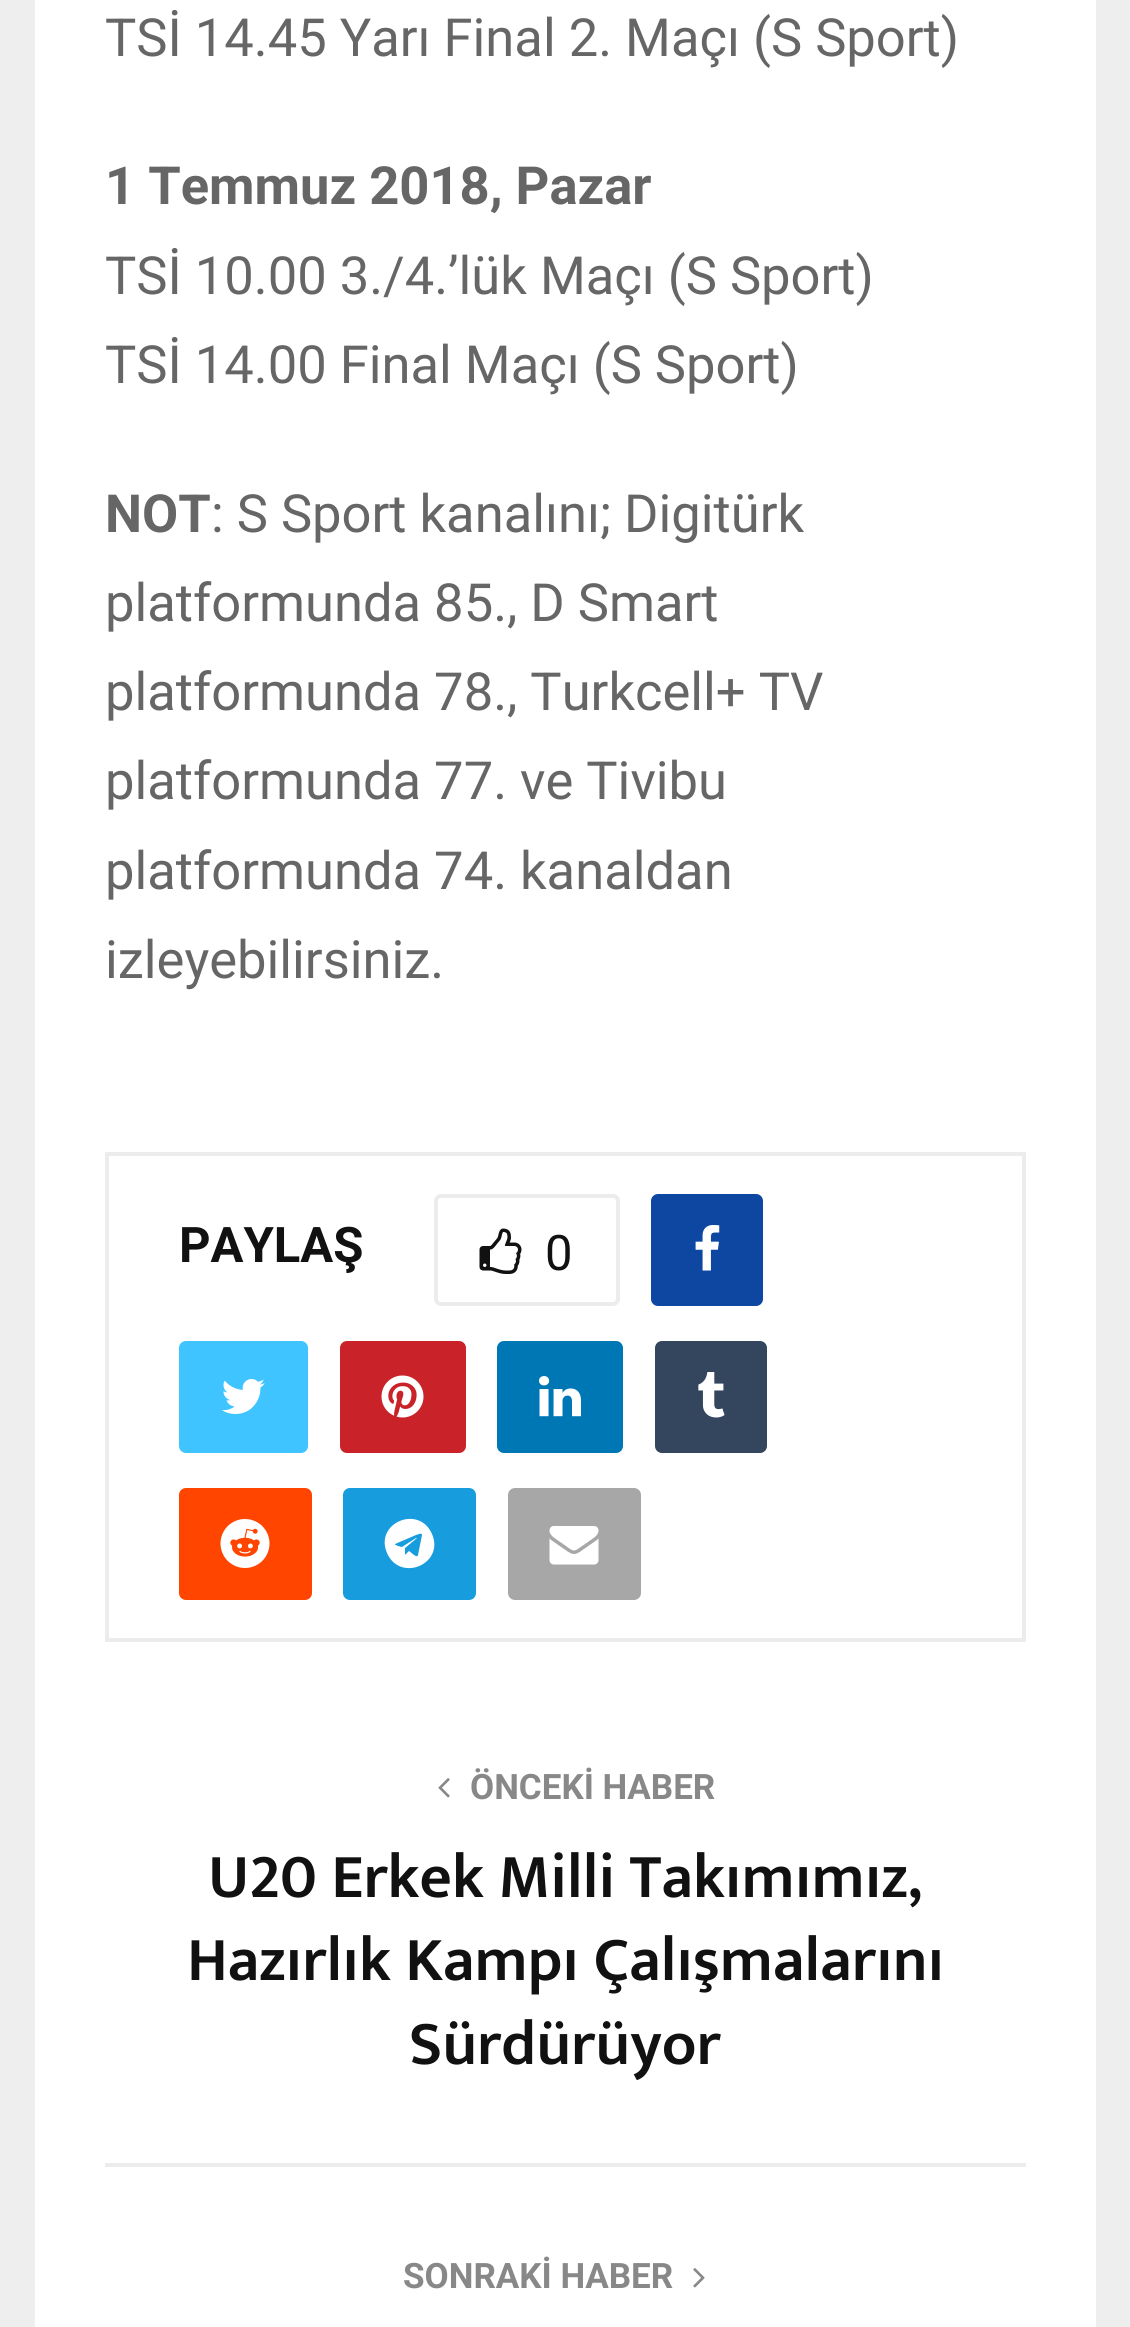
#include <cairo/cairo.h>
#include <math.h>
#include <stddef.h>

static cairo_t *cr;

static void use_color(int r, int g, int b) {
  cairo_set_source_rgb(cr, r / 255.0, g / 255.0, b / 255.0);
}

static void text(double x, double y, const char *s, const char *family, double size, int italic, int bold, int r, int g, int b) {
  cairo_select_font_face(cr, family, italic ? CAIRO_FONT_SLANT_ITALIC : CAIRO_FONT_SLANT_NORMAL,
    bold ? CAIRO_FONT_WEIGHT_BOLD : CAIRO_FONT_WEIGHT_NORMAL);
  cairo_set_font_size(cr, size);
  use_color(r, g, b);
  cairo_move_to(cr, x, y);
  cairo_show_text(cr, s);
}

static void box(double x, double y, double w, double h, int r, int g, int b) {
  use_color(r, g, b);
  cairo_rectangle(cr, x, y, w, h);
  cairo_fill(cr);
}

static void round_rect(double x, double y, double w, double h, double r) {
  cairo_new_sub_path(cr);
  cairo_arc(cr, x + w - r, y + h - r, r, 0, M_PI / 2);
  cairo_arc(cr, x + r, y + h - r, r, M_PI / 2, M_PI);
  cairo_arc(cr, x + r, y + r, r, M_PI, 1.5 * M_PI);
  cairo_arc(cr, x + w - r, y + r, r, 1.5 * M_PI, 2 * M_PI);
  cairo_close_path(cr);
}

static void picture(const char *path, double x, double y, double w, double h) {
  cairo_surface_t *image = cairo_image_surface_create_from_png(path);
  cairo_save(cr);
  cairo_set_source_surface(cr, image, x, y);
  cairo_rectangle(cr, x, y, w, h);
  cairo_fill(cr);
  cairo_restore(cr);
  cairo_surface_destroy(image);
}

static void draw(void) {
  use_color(238, 238, 238);
  cairo_paint(cr);
  box(35, 0, 1061, 2327, 255, 255, 255);
  cairo_rectangle(cr, 107, 1154, 917, 486);
  use_color(236, 236, 236);
  cairo_set_line_width(cr, 4);
  cairo_stroke(cr);
  round_rect(436, 1196, 182, 108, 5);
  cairo_stroke(cr);
  picture("img_01.png", 479, 1228, 43, 46);
  use_color(13, 71, 161);
  round_rect(651, 1194, 112, 112, 7);
  cairo_fill(cr);
  picture("img_02.png", 695, 1225, 25, 46);
  use_color(64, 196, 255);
  round_rect(179, 1341, 129, 112, 7);
  cairo_fill(cr);
  picture("img_03.png", 222, 1379, 43, 35);
  use_color(201, 34, 40);
  round_rect(340, 1341, 126, 112, 7);
  cairo_fill(cr);
  picture("img_04.png", 381, 1375, 43, 43);
  use_color(0, 119, 181);
  round_rect(497, 1341, 126, 112, 7);
  cairo_fill(cr);
  picture("img_05.png", 539, 1376, 42, 41);
  use_color(52, 70, 93);
  round_rect(655, 1341, 112, 112, 7);
  cairo_fill(cr);
  picture("img_06.png", 698, 1372, 27, 46);
  use_color(255, 69, 0);
  round_rect(179, 1488, 133, 112, 7);
  cairo_fill(cr);
  picture("img_07.png", 220, 1519, 50, 49);
  use_color(23, 156, 222);
  round_rect(343, 1488, 133, 112, 7);
  cairo_fill(cr);
  use_color(255, 255, 255);
  cairo_new_path(cr);
  cairo_move_to(cr, 418, 1555);
  cairo_line_to(cr, 422, 1535);
  cairo_curve_to(cr, 422, 1532, 417, 1535, 416, 1535);
  cairo_line_to(cr, 395, 1544);
  cairo_curve_to(cr, 394, 1545, 401, 1547, 402, 1547);
  cairo_line_to(cr, 416, 1538);
  cairo_curve_to(cr, 416, 1538, 417, 1538, 417, 1538);
  cairo_line_to(cr, 405, 1548);
  cairo_line_to(cr, 405, 1555);
  cairo_line_to(cr, 409, 1551);
  cairo_curve_to(cr, 411, 1552, 417, 1559, 418, 1555);
  cairo_close_path(cr);
  cairo_move_to(cr, 432, 1534);
  cairo_curve_to(cr, 445, 1564, 400, 1583, 387, 1553);
  cairo_curve_to(cr, 374, 1523, 419, 1504, 432, 1534);
  cairo_close_path(cr);
  cairo_fill(cr);
  use_color(167, 167, 167);
  round_rect(508, 1488, 133, 112, 7);
  cairo_fill(cr);
  picture("img_08.png", 549, 1526, 50, 39);
  picture("img_09.png", 438, 1778, 12, 20);
  box(105, 2163, 921, 4, 236, 236, 236);
  picture("img_10.png", 693, 2268, 12, 20);
  text(105, 56, "TSİ 14.45 Yarı Final 2. Maçı (S Sport)", "Roboto", 52.5, 0, 0, 102, 102, 102);
  text(105, 204, "1 Temmuz 2018, Pazar", "Roboto", 52.5, 0, 1, 102, 102, 102);
  text(105, 294, "TSİ 10.00 3./4.’lük Maçı (S Sport)", "Roboto", 52.5, 0, 0, 102, 102, 102);
  text(105, 383, "TSİ 14.00 Final Maçı (S Sport)", "Roboto", 52.5, 0, 0, 102, 102, 102);
  text(105, 532, "NOT", "Roboto", 52.5, 0, 1, 102, 102, 102);
  text(211, 532, ": S Sport kanalını; Digitürk", "Roboto", 52.5, 0, 0, 102, 102, 102);
  text(105, 621, "platformunda 85., D Smart", "Roboto", 52.5, 0, 0, 102, 102, 102);
  text(105, 710, "platformunda 78., Turkcell+ TV", "Roboto", 52.5, 0, 0, 102, 102, 102);
  text(105, 799, "platformunda 77. ve Tivibu", "Roboto", 52.5, 0, 0, 102, 102, 102);
  text(105, 889, "platformunda 74. kanaldan", "Roboto", 52.5, 0, 0, 102, 102, 102);
  text(105, 978, "izleyebilirsiniz.", "Roboto", 52.5, 0, 0, 102, 102, 102);
  text(179, 1262, "PAYLAŞ", "Roboto", 49, 0, 1, 17, 17, 17);
  text(545, 1270, "0", "Roboto", 49, 0, 0, 17, 17, 17);
  text(470, 1799, "ÖNCEKİ HABER", "Roboto", 35, 0, 1, 136, 136, 136);
  text(208, 1897, "U20 Erkek Milli Takımımız,", "Mukta Vaani SemiBold", 63, 0, 0, 17, 17, 17);
  text(187, 1980, "Hazırlık Kampı Çalışmalarını", "Mukta Vaani SemiBold", 63, 0, 0, 17, 17, 17);
  text(409, 2064, "Sürdürüyor", "Mukta Vaani SemiBold", 63, 0, 0, 17, 17, 17);
  text(403, 2288, "SONRAKİ HABER", "Roboto", 35, 0, 1, 136, 136, 136);
}

int main(void) {
  cairo_surface_t *surface = cairo_image_surface_create(CAIRO_FORMAT_RGB24, 1130, 2327);
  cr = cairo_create(surface);
  cairo_font_options_t *options = cairo_font_options_create();
  cairo_font_options_set_hint_metrics(options, CAIRO_HINT_METRICS_OFF);
  cairo_font_options_set_hint_style(options, CAIRO_HINT_STYLE_NONE);
  cairo_set_font_options(cr, options);
  cairo_set_miter_limit(cr, 4);
  draw();
  cairo_surface_write_to_png(surface, "out.png");
  cairo_font_options_destroy(options);
  cairo_destroy(cr);
  cairo_surface_destroy(surface);
  return 0;
}
